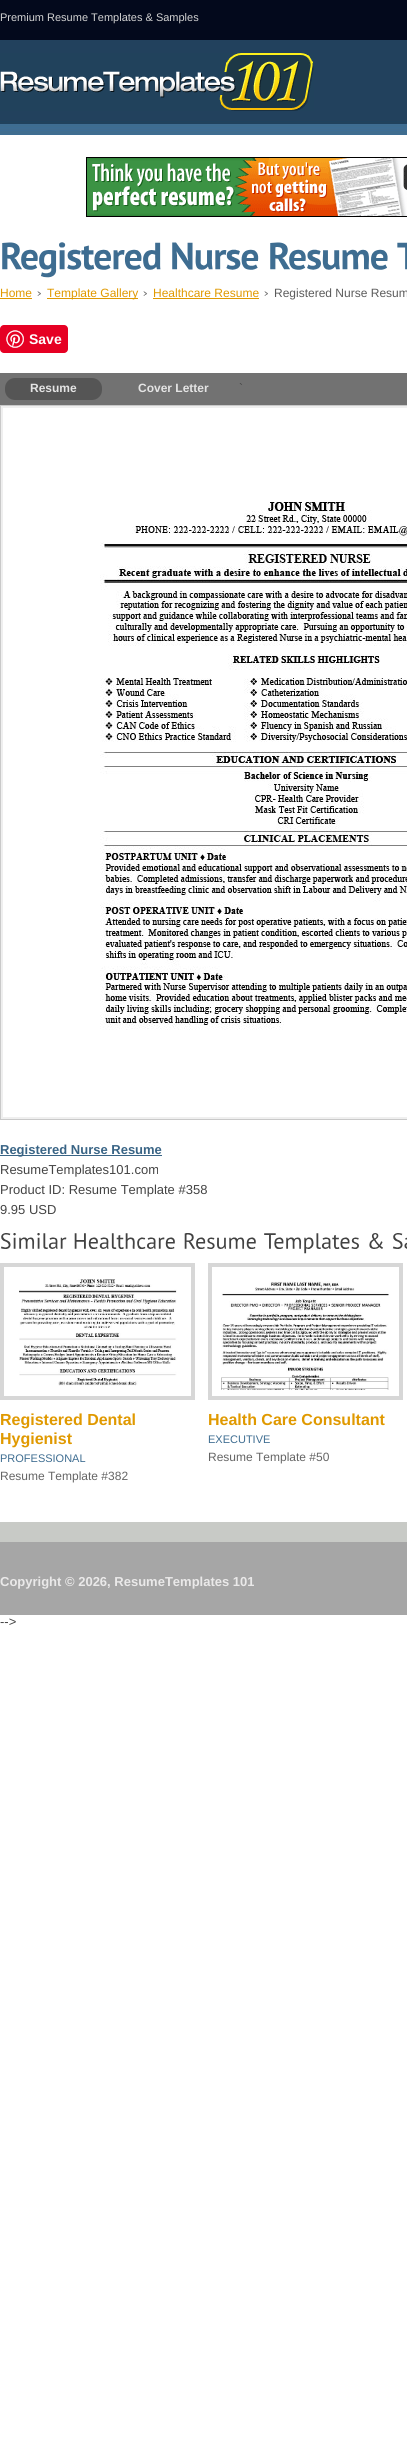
#include <cairo/cairo.h>
#include <math.h>
#include <stddef.h>

static cairo_t *cr;

static void use_color(int r, int g, int b) {
  cairo_set_source_rgb(cr, r / 255.0, g / 255.0, b / 255.0);
}

static void text(double x, double y, const char *s, const char *family, double size, int italic, int bold, int r, int g, int b) {
  cairo_select_font_face(cr, family, italic ? CAIRO_FONT_SLANT_ITALIC : CAIRO_FONT_SLANT_NORMAL,
    bold ? CAIRO_FONT_WEIGHT_BOLD : CAIRO_FONT_WEIGHT_NORMAL);
  cairo_set_font_size(cr, size);
  use_color(r, g, b);
  cairo_move_to(cr, x, y);
  cairo_show_text(cr, s);
}

static void box(double x, double y, double w, double h, int r, int g, int b) {
  use_color(r, g, b);
  cairo_rectangle(cr, x, y, w, h);
  cairo_fill(cr);
}

static void round_rect(double x, double y, double w, double h, double r) {
  cairo_new_sub_path(cr);
  cairo_arc(cr, x + w - r, y + h - r, r, 0, M_PI / 2);
  cairo_arc(cr, x + r, y + h - r, r, M_PI / 2, M_PI);
  cairo_arc(cr, x + r, y + r, r, M_PI, 1.5 * M_PI);
  cairo_arc(cr, x + w - r, y + r, r, 1.5 * M_PI, 2 * M_PI);
  cairo_close_path(cr);
}

static void picture(const char *path, double x, double y, double w, double h) {
  cairo_surface_t *image = cairo_image_surface_create_from_png(path);
  cairo_save(cr);
  cairo_set_source_surface(cr, image, x, y);
  cairo_rectangle(cr, x, y, w, h);
  cairo_fill(cr);
  cairo_restore(cr);
  cairo_surface_destroy(image);
}

static void draw(void) {
  use_color(255, 255, 255);
  cairo_paint(cr);
  box(0, 0, 407, 40, 3, 9, 28);
  picture("img_01.png", 0, 40, 407, 95);
  picture("img_02.png", 0, 53, 314, 58);
  picture("img_03.png", 86, 157, 321, 60);
  picture("img_04.png", 2, 242, 159, 36);
  picture("img_05.png", 172, 242, 87, 28);
  picture("img_06.png", 270, 242, 118, 28);
  picture("img_07.png", 397, 242, 10, 28);
  picture("img_08.png", 37, 291, 4, 5);
  box(0, 298, 32, 1, 224, 153, 0);
  picture("img_08.png", 143, 291, 4, 5);
  box(47, 298, 91, 1, 224, 153, 0);
  picture("img_08.png", 264, 291, 4, 5);
  box(153, 298, 106, 1, 224, 153, 0);
  use_color(230, 0, 35);
  round_rect(0, 325, 68, 28, 4);
  cairo_fill(cr);
  picture("img_09.png", 6, 330, 18, 18);
  box(0, 373, 407, 32, 114, 114, 114);
  use_color(85, 85, 85);
  round_rect(5, 378, 97, 22, 10);
  cairo_fill(cr);
  cairo_rectangle(cr, 0.5, 405.5, 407, 714);
  use_color(201, 201, 201);
  cairo_set_line_width(cr, 1);
  cairo_stroke(cr);
  cairo_rectangle(cr, 2, 407, 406, 711);
  use_color(239, 239, 239);
  cairo_set_line_width(cr, 2);
  cairo_stroke(cr);
  picture("img_10.png", 100, 502, 307, 528);
  box(0, 1155, 162, 1, 57, 100, 133);
  picture("img_11.png", 0, 1233, 67, 16);
  picture("img_12.png", 74, 1233, 101, 16);
  picture("img_13.png", 184, 1233, 72, 16);
  picture("img_14.png", 264, 1233, 95, 21);
  picture("img_15.png", 369, 1233, 14, 16);
  picture("img_16.png", 392, 1233, 15, 16);
  cairo_rectangle(cr, 2, 1265, 191, 133);
  use_color(215, 215, 215);
  cairo_set_line_width(cr, 4);
  cairo_stroke(cr);
  picture("img_17.png", 19, 1279, 158, 107);
  cairo_rectangle(cr, 210, 1265, 191, 133);
  cairo_stroke(cr);
  picture("img_18.png", 221, 1281, 168, 109);
  box(0, 1542, 407, 73, 166, 166, 166);
  picture("img_19.png", 0, 1515, 407, 27);
  text(0, 21, "Premium Resume Templates & Samples", "Liberation Sans", 11, 0, 0, 210, 210, 210);
  text(0, 297, "Home", "Liberation Sans", 12, 0, 0, 224, 153, 0);
  text(47, 297, "Template Gallery", "Liberation Sans", 12, 0, 0, 224, 153, 0);
  text(153, 297, "Healthcare Resume", "Liberation Sans", 12, 0, 0, 224, 153, 0);
  text(274, 297, "Registered Nurse Resum", "Liberation Sans", 12, 0, 0, 91, 91, 91);
  text(29, 344, "Save", "Liberation Sans", 14, 0, 1, 255, 255, 255);
  text(30, 392, "Resume", "Liberation Sans", 12, 0, 1, 228, 228, 228);
  text(138, 392, "Cover Letter", "Liberation Sans", 12, 0, 1, 228, 228, 228);
  text(239, 392, "`", "Liberation Sans", 12, 0, 0, 68, 68, 68);
  text(0, 1154, "Registered Nurse Resume", "Liberation Sans", 13, 0, 1, 57, 100, 133);
  text(0, 1174, "ResumeTemplates101.com", "Liberation Sans", 13, 0, 0, 68, 68, 68);
  text(0, 1194, "Product ID: Resume Template #358", "Liberation Sans", 13, 0, 0, 68, 68, 68);
  text(0, 1214, "9.95 USD", "Liberation Sans", 13, 0, 0, 68, 68, 68);
  text(0, 1425, "Registered Dental", "Liberation Sans", 16, 0, 1, 224, 153, 0);
  text(0, 1444, "Hygienist", "Liberation Sans", 16, 0, 1, 224, 153, 0);
  text(0, 1462, "PROFESSIONAL", "Liberation Sans", 11, 0, 0, 62, 109, 145);
  text(0, 1480, "Resume Template #382", "Liberation Sans", 12, 0, 0, 101, 101, 101);
  text(208, 1425, "Health Care Consultant", "Liberation Sans", 16, 0, 1, 224, 153, 0);
  text(208, 1443, "EXECUTIVE", "Liberation Sans", 11, 0, 0, 62, 109, 145);
  text(208, 1461, "Resume Template #50", "Liberation Sans", 12, 0, 0, 101, 101, 101);
  text(0, 1586, "Copyright © 2026, ResumeTemplates 101", "Liberation Sans", 13, 0, 1, 234, 233, 233);
  text(0, 1626, "-->", "Liberation Sans", 13, 0, 0, 68, 68, 68);
}

int main(void) {
  cairo_surface_t *surface = cairo_image_surface_create(CAIRO_FORMAT_RGB24, 407, 2452);
  cr = cairo_create(surface);
  cairo_font_options_t *options = cairo_font_options_create();
  cairo_font_options_set_hint_metrics(options, CAIRO_HINT_METRICS_OFF);
  cairo_font_options_set_hint_style(options, CAIRO_HINT_STYLE_NONE);
  cairo_set_font_options(cr, options);
  cairo_set_miter_limit(cr, 4);
  draw();
  cairo_surface_write_to_png(surface, "out.png");
  cairo_font_options_destroy(options);
  cairo_destroy(cr);
  cairo_surface_destroy(surface);
  return 0;
}
